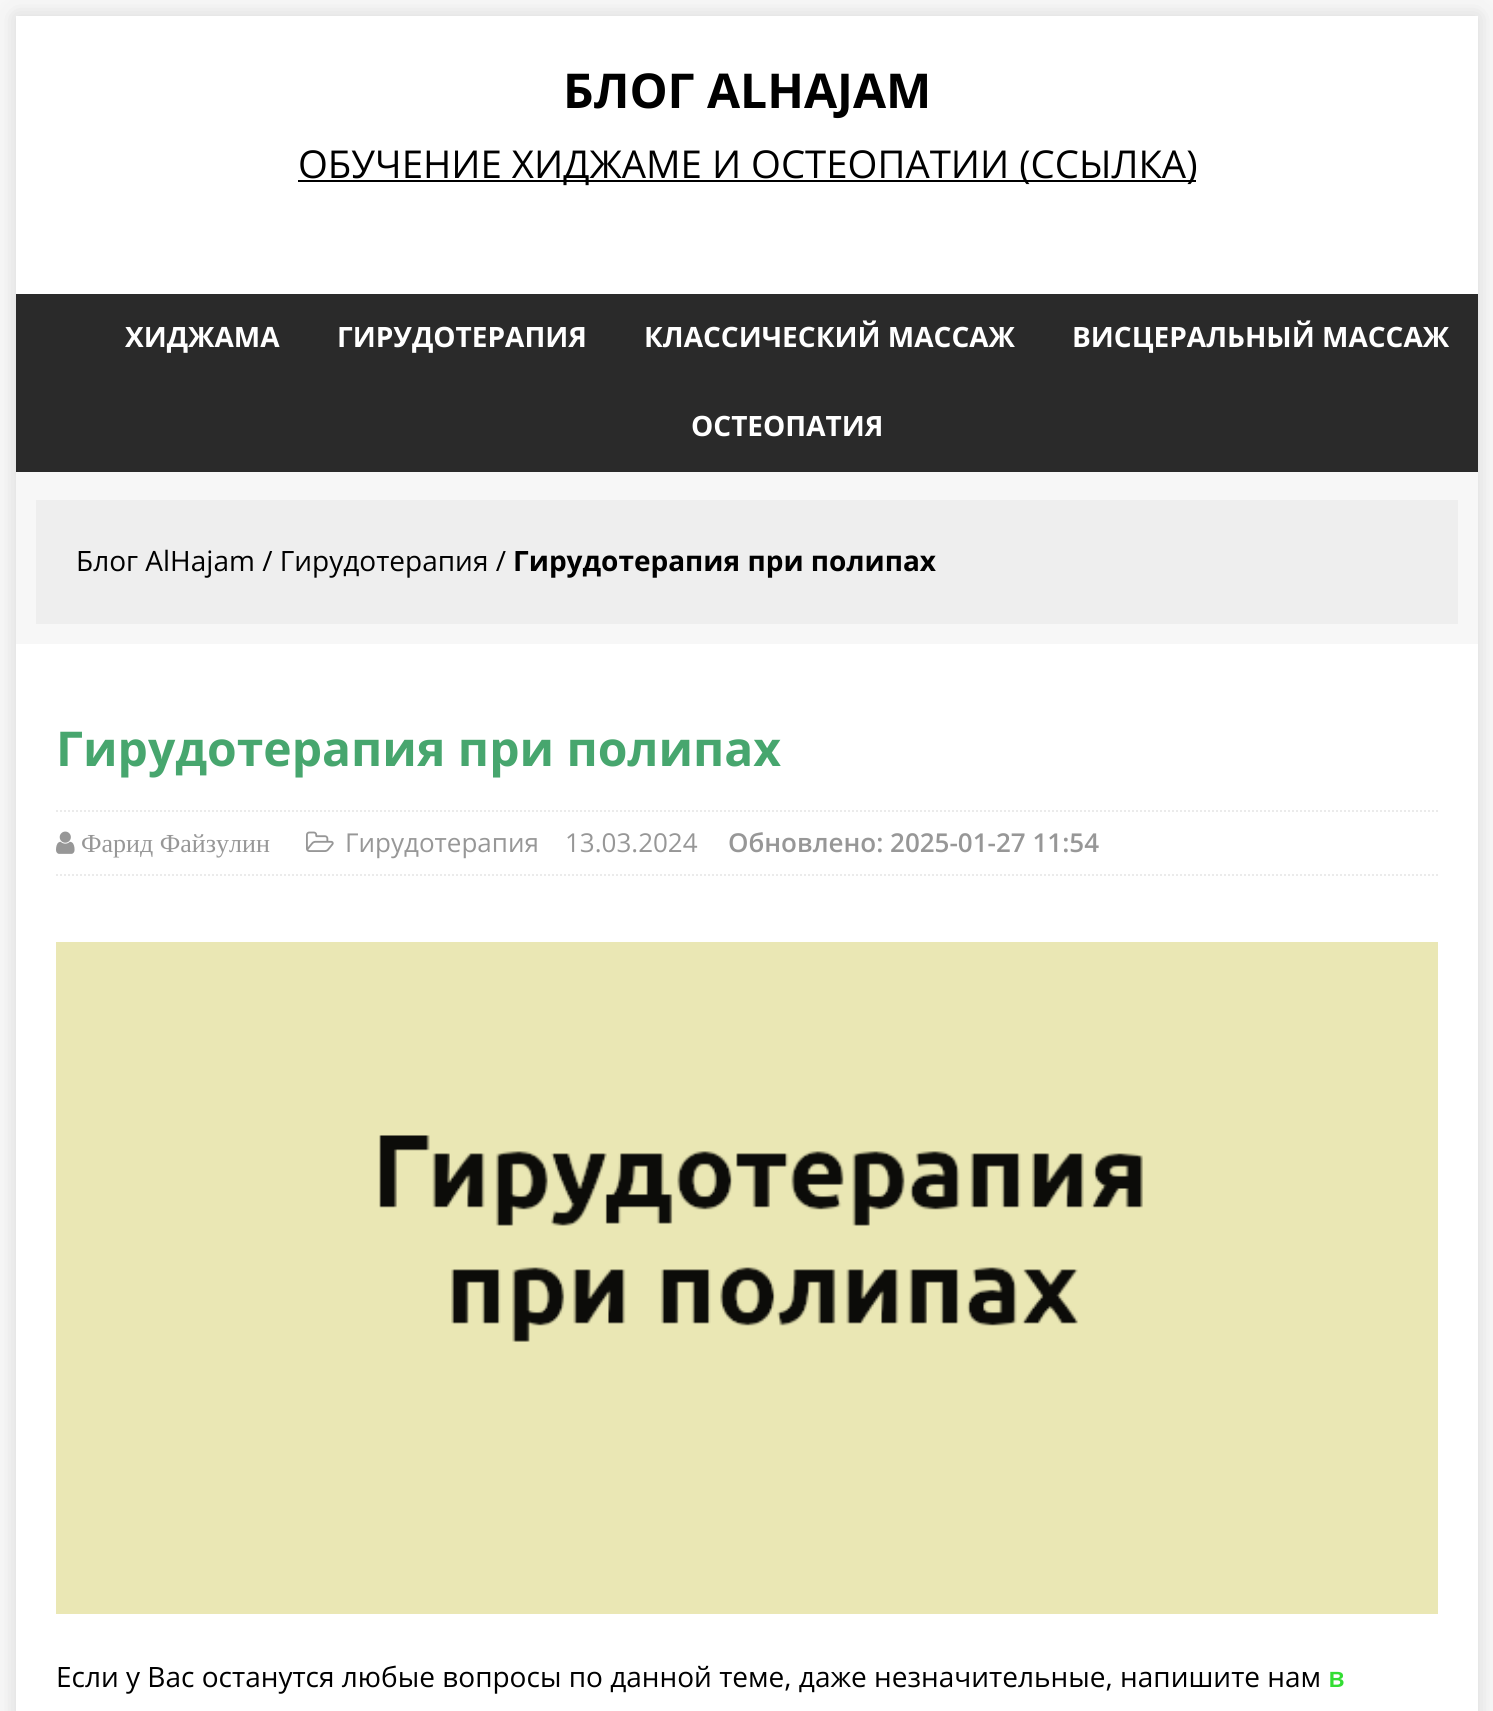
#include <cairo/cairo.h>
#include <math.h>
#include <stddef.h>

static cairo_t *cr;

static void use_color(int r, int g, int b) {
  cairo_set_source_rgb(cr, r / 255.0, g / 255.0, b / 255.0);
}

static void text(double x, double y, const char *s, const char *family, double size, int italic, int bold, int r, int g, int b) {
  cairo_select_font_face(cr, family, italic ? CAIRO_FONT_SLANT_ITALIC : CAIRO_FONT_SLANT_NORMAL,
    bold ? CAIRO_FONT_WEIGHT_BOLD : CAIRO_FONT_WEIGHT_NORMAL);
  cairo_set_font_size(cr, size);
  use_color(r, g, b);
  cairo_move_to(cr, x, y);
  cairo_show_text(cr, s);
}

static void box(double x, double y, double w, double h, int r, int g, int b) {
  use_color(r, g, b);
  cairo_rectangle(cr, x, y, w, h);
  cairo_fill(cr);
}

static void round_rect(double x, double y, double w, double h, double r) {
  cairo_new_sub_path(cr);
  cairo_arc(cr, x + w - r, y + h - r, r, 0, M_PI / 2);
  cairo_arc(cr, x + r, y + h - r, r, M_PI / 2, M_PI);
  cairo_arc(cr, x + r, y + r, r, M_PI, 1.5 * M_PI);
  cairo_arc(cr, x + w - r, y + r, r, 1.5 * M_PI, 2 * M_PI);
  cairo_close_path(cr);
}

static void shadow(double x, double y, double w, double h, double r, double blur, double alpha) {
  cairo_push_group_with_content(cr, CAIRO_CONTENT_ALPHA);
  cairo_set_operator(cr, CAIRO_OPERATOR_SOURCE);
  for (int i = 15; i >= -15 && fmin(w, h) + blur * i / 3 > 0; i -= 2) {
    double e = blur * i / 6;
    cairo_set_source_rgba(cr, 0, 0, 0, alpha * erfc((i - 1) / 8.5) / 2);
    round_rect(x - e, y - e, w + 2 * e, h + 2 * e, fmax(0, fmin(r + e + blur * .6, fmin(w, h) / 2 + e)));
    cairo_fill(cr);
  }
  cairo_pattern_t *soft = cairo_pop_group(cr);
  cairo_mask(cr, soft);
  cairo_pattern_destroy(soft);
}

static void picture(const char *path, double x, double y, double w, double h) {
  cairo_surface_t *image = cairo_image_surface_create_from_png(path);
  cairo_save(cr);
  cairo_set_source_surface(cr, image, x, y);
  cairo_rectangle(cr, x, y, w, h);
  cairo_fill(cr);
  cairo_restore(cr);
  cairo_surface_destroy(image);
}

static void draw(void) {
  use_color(247, 247, 247);
  cairo_paint(cr);
  cairo_save(cr);
  cairo_set_fill_rule(cr, CAIRO_FILL_RULE_EVEN_ODD);
  cairo_new_path(cr);
  cairo_move_to(cr, 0, 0);
  cairo_line_to(cr, 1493, 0);
  cairo_line_to(cr, 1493, 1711);
  cairo_line_to(cr, 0, 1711);
  cairo_close_path(cr);
  cairo_move_to(cr, 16, 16);
  cairo_line_to(cr, 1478, 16);
  cairo_line_to(cr, 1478, 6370);
  cairo_line_to(cr, 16, 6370);
  cairo_close_path(cr);
  cairo_clip(cr);
  use_color(50, 50, 50);
  shadow(16, 16, 1462, 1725, 0, 10, 0.17);
  cairo_restore(cr);
  box(16, 16, 1462, 278, 255, 255, 255);
  box(298, 180, 898, 2, 0, 0, 0);
  box(16, 294, 1462, 178, 42, 42, 42);
  box(36, 500, 1422, 124, 238, 238, 238);
  box(16, 644, 1462, 1067, 255, 255, 255);
  cairo_new_path(cr);
  cairo_move_to(cr, 56, 811);
  cairo_line_to(cr, 1438, 811);
  use_color(235, 235, 235);
  cairo_set_dash(cr, (double[]){2, 2}, 2, 0);
  cairo_stroke(cr);
  cairo_new_path(cr);
  cairo_move_to(cr, 56, 875);
  cairo_line_to(cr, 1438, 875);
  cairo_stroke(cr);
  picture("img_01.png", 56, 831, 19, 23);
  picture("img_02.png", 306, 831, 28, 21);
  picture("img_03.png", 56, 942, 1382, 672);
  text(563, 108, "БЛОГ ALHAJAM", "Open Sans", 48, 0, 1, 0, 0, 0);
  text(298, 178, "ОБУЧЕНИЕ ХИДЖАМЕ И ОСТЕОПАТИИ (ССЫЛКА)", "Open Sans", 38.4, 0, 0, 0, 0, 0);
  text(125, 347, "ХИДЖАМА", "Open Sans", 28, 0, 1, 255, 255, 255);
  text(337, 347, "ГИРУДОТЕРАПИЯ", "Open Sans", 28, 0, 1, 255, 255, 255);
  text(644, 347, "КЛАССИЧЕСКИЙ МАССАЖ", "Open Sans", 28, 0, 1, 255, 255, 255);
  text(1072, 347, "ВИСЦЕРАЛЬНЫЙ МАССАЖ", "Open Sans", 28, 0, 1, 255, 255, 255);
  text(691, 436, "ОСТЕОПАТИЯ", "Open Sans", 28, 0, 1, 255, 255, 255);
  text(76, 571, "Блог AlHajam / Гирудотерапия /", "Open Sans", 28, 0, 0, 0, 0, 0);
  text(513, 571, "Гирудотерапия при полипах", "Open Sans", 28, 0, 1, 0, 0, 0);
  text(56, 766, "Гирудотерапия при полипах", "Open Sans", 48, 0, 1, 71, 166, 110);
  text(81, 852, "Фарид Файзулин", "Liberation Serif", 26, 0, 0, 151, 151, 151);
  text(345, 852, "Гирудотерапия", "Open Sans", 26, 0, 0, 151, 151, 151);
  text(565, 852, "13.03.2024", "Open Sans", 26, 0, 0, 151, 151, 151);
  text(728, 852, "Обновлено: 2025-01-27 11:54", "Open Sans SemiBold", 26, 0, 0, 151, 151, 151);
  text(56, 1687, "Если у Вас останутся любые вопросы по данной теме, даже незначительные, напишите нам", "Open Sans", 28, 0, 0, 0, 0, 0);
  text(1328, 1687, "в", "Open Sans SemiBold", 28, 0, 0, 51, 221, 51);
}

int main(void) {
  cairo_surface_t *surface = cairo_image_surface_create(CAIRO_FORMAT_RGB24, 1493, 1711);
  cr = cairo_create(surface);
  cairo_font_options_t *options = cairo_font_options_create();
  cairo_font_options_set_hint_metrics(options, CAIRO_HINT_METRICS_OFF);
  cairo_font_options_set_hint_style(options, CAIRO_HINT_STYLE_NONE);
  cairo_set_font_options(cr, options);
  cairo_set_miter_limit(cr, 4);
  draw();
  cairo_surface_write_to_png(surface, "out.png");
  cairo_font_options_destroy(options);
  cairo_destroy(cr);
  cairo_surface_destroy(surface);
  return 0;
}
